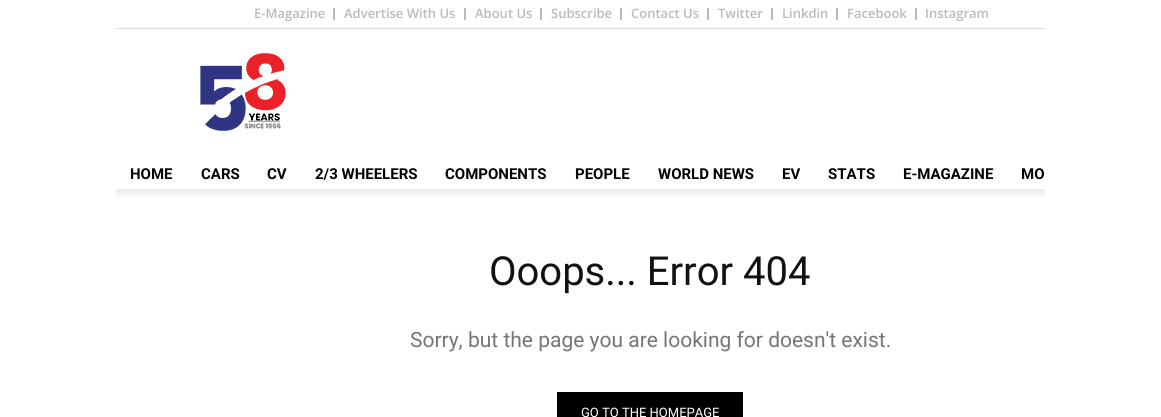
#include <cairo/cairo.h>
#include <math.h>
#include <stddef.h>

static cairo_t *cr;

static void use_color(int r, int g, int b) {
  cairo_set_source_rgb(cr, r / 255.0, g / 255.0, b / 255.0);
}

static void text(double x, double y, const char *s, const char *family, double size, int italic, int bold, int r, int g, int b) {
  cairo_select_font_face(cr, family, italic ? CAIRO_FONT_SLANT_ITALIC : CAIRO_FONT_SLANT_NORMAL,
    bold ? CAIRO_FONT_WEIGHT_BOLD : CAIRO_FONT_WEIGHT_NORMAL);
  cairo_set_font_size(cr, size);
  use_color(r, g, b);
  cairo_move_to(cr, x, y);
  cairo_show_text(cr, s);
}

static void box(double x, double y, double w, double h, int r, int g, int b) {
  use_color(r, g, b);
  cairo_rectangle(cr, x, y, w, h);
  cairo_fill(cr);
}

static void picture(const char *path, double x, double y, double w, double h) {
  cairo_surface_t *image = cairo_image_surface_create_from_png(path);
  cairo_save(cr);
  cairo_set_source_surface(cr, image, x, y);
  cairo_rectangle(cr, x, y, w, h);
  cairo_fill(cr);
  cairo_restore(cr);
  cairo_surface_destroy(image);
}

static void draw(void) {
  use_color(255, 255, 255);
  cairo_paint(cr);
  box(116, 28, 929, 1, 219, 219, 219);
  box(333, 8, 2, 12, 186, 186, 186);
  box(464, 8, 2, 12, 186, 186, 186);
  box(540, 8, 2, 12, 186, 186, 186);
  box(620, 8, 2, 12, 186, 186, 186);
  box(707, 8, 2, 12, 186, 186, 186);
  box(771, 8, 2, 12, 186, 186, 186);
  box(836, 8, 2, 12, 186, 186, 186);
  box(915, 8, 2, 12, 186, 186, 186);
  picture("img_01.png", 200, 53, 86, 78);
  picture("img_02.png", 116, 189, 929, 9);
  box(557, 392, 186, 25, 0, 0, 0);
  text(254, 18, "E-Magazine", "Open Sans SemiBold", 13, 0, 0, 186, 186, 186);
  text(344, 18, "Advertise With Us", "Open Sans SemiBold", 13, 0, 0, 186, 186, 186);
  text(475, 18, "About Us", "Open Sans SemiBold", 13, 0, 0, 186, 186, 186);
  text(551, 18, "Subscribe", "Open Sans SemiBold", 13, 0, 0, 186, 186, 186);
  text(631, 18, "Contact Us", "Open Sans SemiBold", 13, 0, 0, 186, 186, 186);
  text(718, 18, "Twitter", "Open Sans SemiBold", 13, 0, 0, 186, 186, 186);
  text(782, 18, "Linkdin", "Open Sans SemiBold", 13, 0, 0, 186, 186, 186);
  text(847, 18, "Facebook", "Open Sans SemiBold", 13, 0, 0, 186, 186, 186);
  text(925, 18, "Instagram", "Open Sans SemiBold", 13, 0, 0, 186, 186, 186);
  text(130, 179, "HOME", "Roboto", 15, 0, 1, 0, 0, 0);
  text(201, 179, "CARS", "Roboto", 15, 0, 1, 0, 0, 0);
  text(267, 179, "CV", "Roboto", 15, 0, 1, 0, 0, 0);
  text(315, 179, "2/3 WHEELERS", "Roboto", 15, 0, 1, 0, 0, 0);
  text(445, 179, "COMPONENTS", "Roboto", 15, 0, 1, 0, 0, 0);
  text(575, 179, "PEOPLE", "Roboto", 15, 0, 1, 0, 0, 0);
  text(658, 179, "WORLD NEWS", "Roboto", 15, 0, 1, 0, 0, 0);
  text(782, 179, "EV", "Roboto", 15, 0, 1, 0, 0, 0);
  text(828, 179, "STATS", "Roboto", 15, 0, 1, 0, 0, 0);
  text(903, 179, "E-MAGAZINE", "Roboto", 15, 0, 1, 0, 0, 0);
  text(1021, 179, "MO", "Roboto", 15, 0, 1, 0, 0, 0);
  text(489, 285, "Ooops... Error 404", "Roboto", 40, 0, 0, 17, 17, 17);
  text(410, 347, "Sorry, but the page you are looking for doesn't exist.", "Roboto", 21, 0, 0, 117, 117, 117);
  text(581, 417, "GO TO THE HOMEPAGE", "Roboto", 13, 0, 0, 255, 255, 255);
}

int main(void) {
  cairo_surface_t *surface = cairo_image_surface_create(CAIRO_FORMAT_RGB24, 1161, 417);
  cr = cairo_create(surface);
  cairo_font_options_t *options = cairo_font_options_create();
  cairo_font_options_set_hint_metrics(options, CAIRO_HINT_METRICS_OFF);
  cairo_font_options_set_hint_style(options, CAIRO_HINT_STYLE_NONE);
  cairo_set_font_options(cr, options);
  cairo_set_miter_limit(cr, 4);
  draw();
  cairo_surface_write_to_png(surface, "out.png");
  cairo_font_options_destroy(options);
  cairo_destroy(cr);
  cairo_surface_destroy(surface);
  return 0;
}
